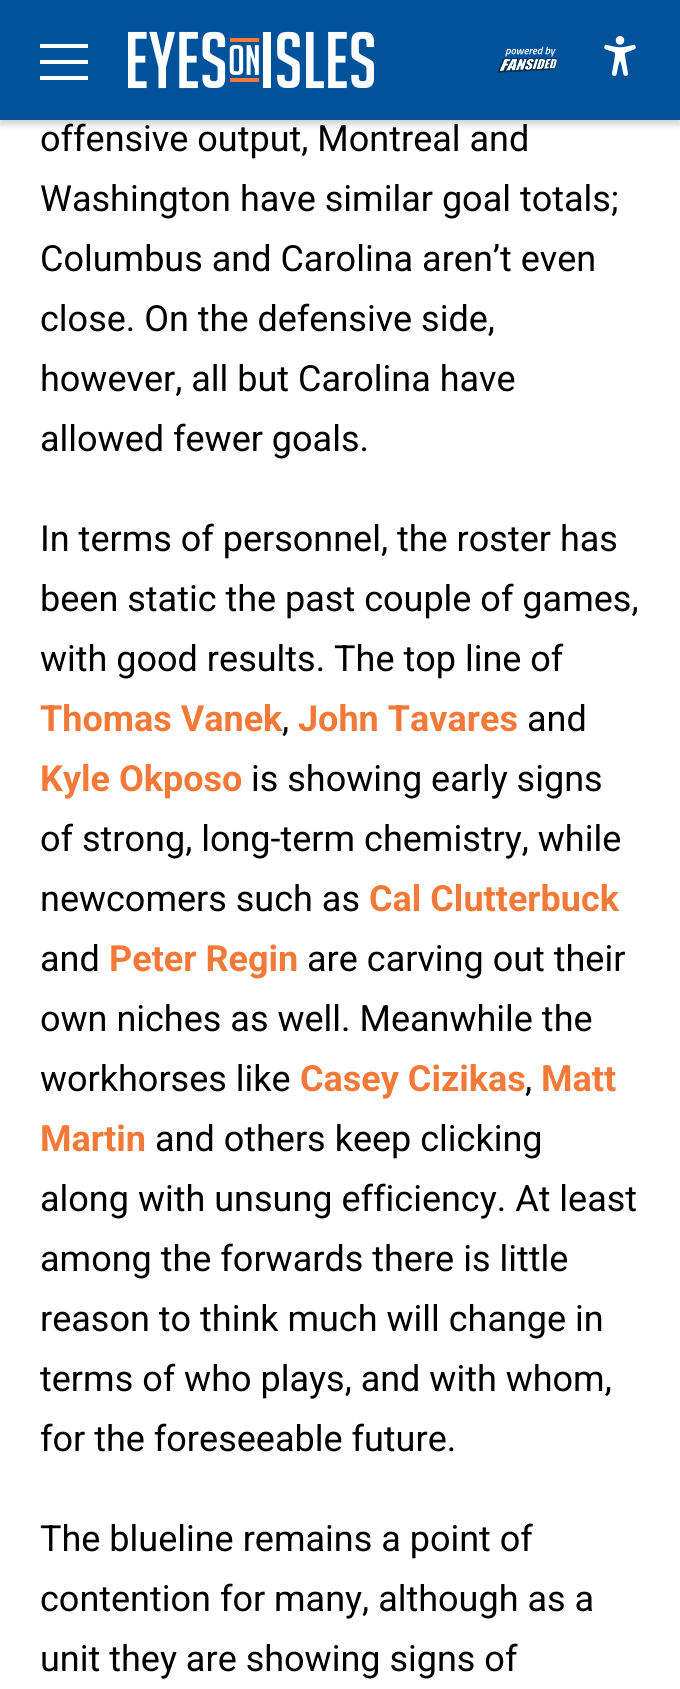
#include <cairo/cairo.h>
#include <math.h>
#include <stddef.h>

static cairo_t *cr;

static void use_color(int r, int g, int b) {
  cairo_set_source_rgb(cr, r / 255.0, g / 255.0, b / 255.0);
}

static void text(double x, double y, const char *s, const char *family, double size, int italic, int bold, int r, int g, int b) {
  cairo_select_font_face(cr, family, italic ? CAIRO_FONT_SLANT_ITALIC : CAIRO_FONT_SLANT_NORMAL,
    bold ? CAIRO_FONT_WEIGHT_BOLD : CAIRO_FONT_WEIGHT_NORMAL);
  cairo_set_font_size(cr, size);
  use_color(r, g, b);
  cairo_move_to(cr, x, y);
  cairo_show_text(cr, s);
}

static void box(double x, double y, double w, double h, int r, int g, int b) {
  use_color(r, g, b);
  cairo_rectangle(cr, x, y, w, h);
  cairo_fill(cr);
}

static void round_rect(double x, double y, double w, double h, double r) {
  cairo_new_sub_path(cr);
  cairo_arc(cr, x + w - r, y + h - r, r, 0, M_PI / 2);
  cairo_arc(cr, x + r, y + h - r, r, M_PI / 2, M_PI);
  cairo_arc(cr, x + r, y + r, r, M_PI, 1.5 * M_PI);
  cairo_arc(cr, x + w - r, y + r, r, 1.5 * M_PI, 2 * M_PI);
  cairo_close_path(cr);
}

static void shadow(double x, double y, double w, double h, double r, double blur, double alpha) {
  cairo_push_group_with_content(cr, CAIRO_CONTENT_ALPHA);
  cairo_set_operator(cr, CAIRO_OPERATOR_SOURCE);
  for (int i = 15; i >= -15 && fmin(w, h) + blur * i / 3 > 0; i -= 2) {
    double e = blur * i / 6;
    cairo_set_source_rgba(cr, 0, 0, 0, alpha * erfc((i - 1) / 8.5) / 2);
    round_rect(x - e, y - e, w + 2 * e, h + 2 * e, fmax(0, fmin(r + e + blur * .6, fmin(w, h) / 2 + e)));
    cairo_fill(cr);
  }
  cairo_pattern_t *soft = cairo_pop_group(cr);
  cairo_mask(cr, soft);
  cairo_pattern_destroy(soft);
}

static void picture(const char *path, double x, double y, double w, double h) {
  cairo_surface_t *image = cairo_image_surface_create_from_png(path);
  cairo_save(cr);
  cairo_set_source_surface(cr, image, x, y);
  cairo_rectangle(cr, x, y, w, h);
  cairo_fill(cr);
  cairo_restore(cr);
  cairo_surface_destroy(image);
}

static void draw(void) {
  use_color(255, 255, 255);
  cairo_paint(cr);
  use_color(0, 0, 0);
  shadow(0, 4, 680, 120, 0, 4, 0.2);
  box(0, 0, 680, 120, 0, 83, 155);
  box(40, 44, 48, 4, 255, 255, 255);
  box(40, 60, 48, 4, 255, 255, 255);
  box(40, 76, 48, 4, 255, 255, 255);
  picture("img_01.png", 128, 31, 246, 58);
  picture("img_02.png", 497, 46, 61, 27);
  picture("img_03.png", 604, 36, 32, 40);
  text(40, 151, "offensive output, Montreal and", "Roboto", 36, 0, 0, 0, 0, 0);
  text(40, 211, "Washington have similar goal totals;", "Roboto", 36, 0, 0, 0, 0, 0);
  text(40, 271, "Columbus and Carolina aren’t even", "Roboto", 36, 0, 0, 0, 0, 0);
  text(40, 331, "close. On the defensive side,", "Roboto", 36, 0, 0, 0, 0, 0);
  text(40, 391, "however, all but Carolina have", "Roboto", 36, 0, 0, 0, 0, 0);
  text(40, 451, "allowed fewer goals.", "Roboto", 36, 0, 0, 0, 0, 0);
  text(40, 551, "In terms of personnel, the roster has", "Roboto", 36, 0, 0, 0, 0, 0);
  text(40, 611, "been static the past couple of games,", "Roboto", 36, 0, 0, 0, 0, 0);
  text(40, 671, "with good results. The top line of", "Roboto", 36, 0, 0, 0, 0, 0);
  text(40, 731, "Thomas Vanek", "Roboto", 36, 0, 1, 243, 121, 56);
  text(282, 731, ",", "Roboto", 36, 0, 0, 0, 0, 0);
  text(298, 731, "John Tavares", "Roboto", 36, 0, 1, 243, 121, 56);
  text(527, 731, "and", "Roboto", 36, 0, 0, 0, 0, 0);
  text(40, 791, "Kyle Okposo", "Roboto", 36, 0, 1, 243, 121, 56);
  text(251, 791, "is showing early signs", "Roboto", 36, 0, 0, 0, 0, 0);
  text(40, 851, "of strong, long-term chemistry, while", "Roboto", 36, 0, 0, 0, 0, 0);
  text(40, 911, "newcomers such as", "Roboto", 36, 0, 0, 0, 0, 0);
  text(369, 911, "Cal Clutterbuck", "Roboto", 36, 0, 1, 243, 121, 56);
  text(40, 971, "and", "Roboto", 36, 0, 0, 0, 0, 0);
  text(109, 971, "Peter Regin", "Roboto", 36, 0, 1, 243, 121, 56);
  text(307, 971, "are carving out their", "Roboto", 36, 0, 0, 0, 0, 0);
  text(40, 1031, "own niches as well. Meanwhile the", "Roboto", 36, 0, 0, 0, 0, 0);
  text(40, 1091, "workhorses like", "Roboto", 36, 0, 0, 0, 0, 0);
  text(300, 1091, "Casey Cizikas", "Roboto", 36, 0, 1, 243, 121, 56);
  text(525, 1091, ",", "Roboto", 36, 0, 0, 0, 0, 0);
  text(541, 1091, "Matt", "Roboto", 36, 0, 1, 243, 121, 56);
  text(40, 1151, "Martin", "Roboto", 36, 0, 1, 243, 121, 56);
  text(155, 1151, "and others keep clicking", "Roboto", 36, 0, 0, 0, 0, 0);
  text(40, 1211, "along with unsung efficiency. At least", "Roboto", 36, 0, 0, 0, 0, 0);
  text(40, 1271, "among the forwards there is little", "Roboto", 36, 0, 0, 0, 0, 0);
  text(40, 1331, "reason to think much will change in", "Roboto", 36, 0, 0, 0, 0, 0);
  text(40, 1391, "terms of who plays, and with whom,", "Roboto", 36, 0, 0, 0, 0, 0);
  text(40, 1451, "for the foreseeable future.", "Roboto", 36, 0, 0, 0, 0, 0);
  text(40, 1551, "The blueline remains a point of", "Roboto", 36, 0, 0, 0, 0, 0);
  text(40, 1611, "contention for many, although as a", "Roboto", 36, 0, 0, 0, 0, 0);
  text(40, 1671, "unit they are showing signs of", "Roboto", 36, 0, 0, 0, 0, 0);
}

int main(void) {
  cairo_surface_t *surface = cairo_image_surface_create(CAIRO_FORMAT_RGB24, 680, 1689);
  cr = cairo_create(surface);
  cairo_font_options_t *options = cairo_font_options_create();
  cairo_font_options_set_hint_metrics(options, CAIRO_HINT_METRICS_OFF);
  cairo_font_options_set_hint_style(options, CAIRO_HINT_STYLE_NONE);
  cairo_set_font_options(cr, options);
  cairo_set_miter_limit(cr, 4);
  draw();
  cairo_surface_write_to_png(surface, "out.png");
  cairo_font_options_destroy(options);
  cairo_destroy(cr);
  cairo_surface_destroy(surface);
  return 0;
}
